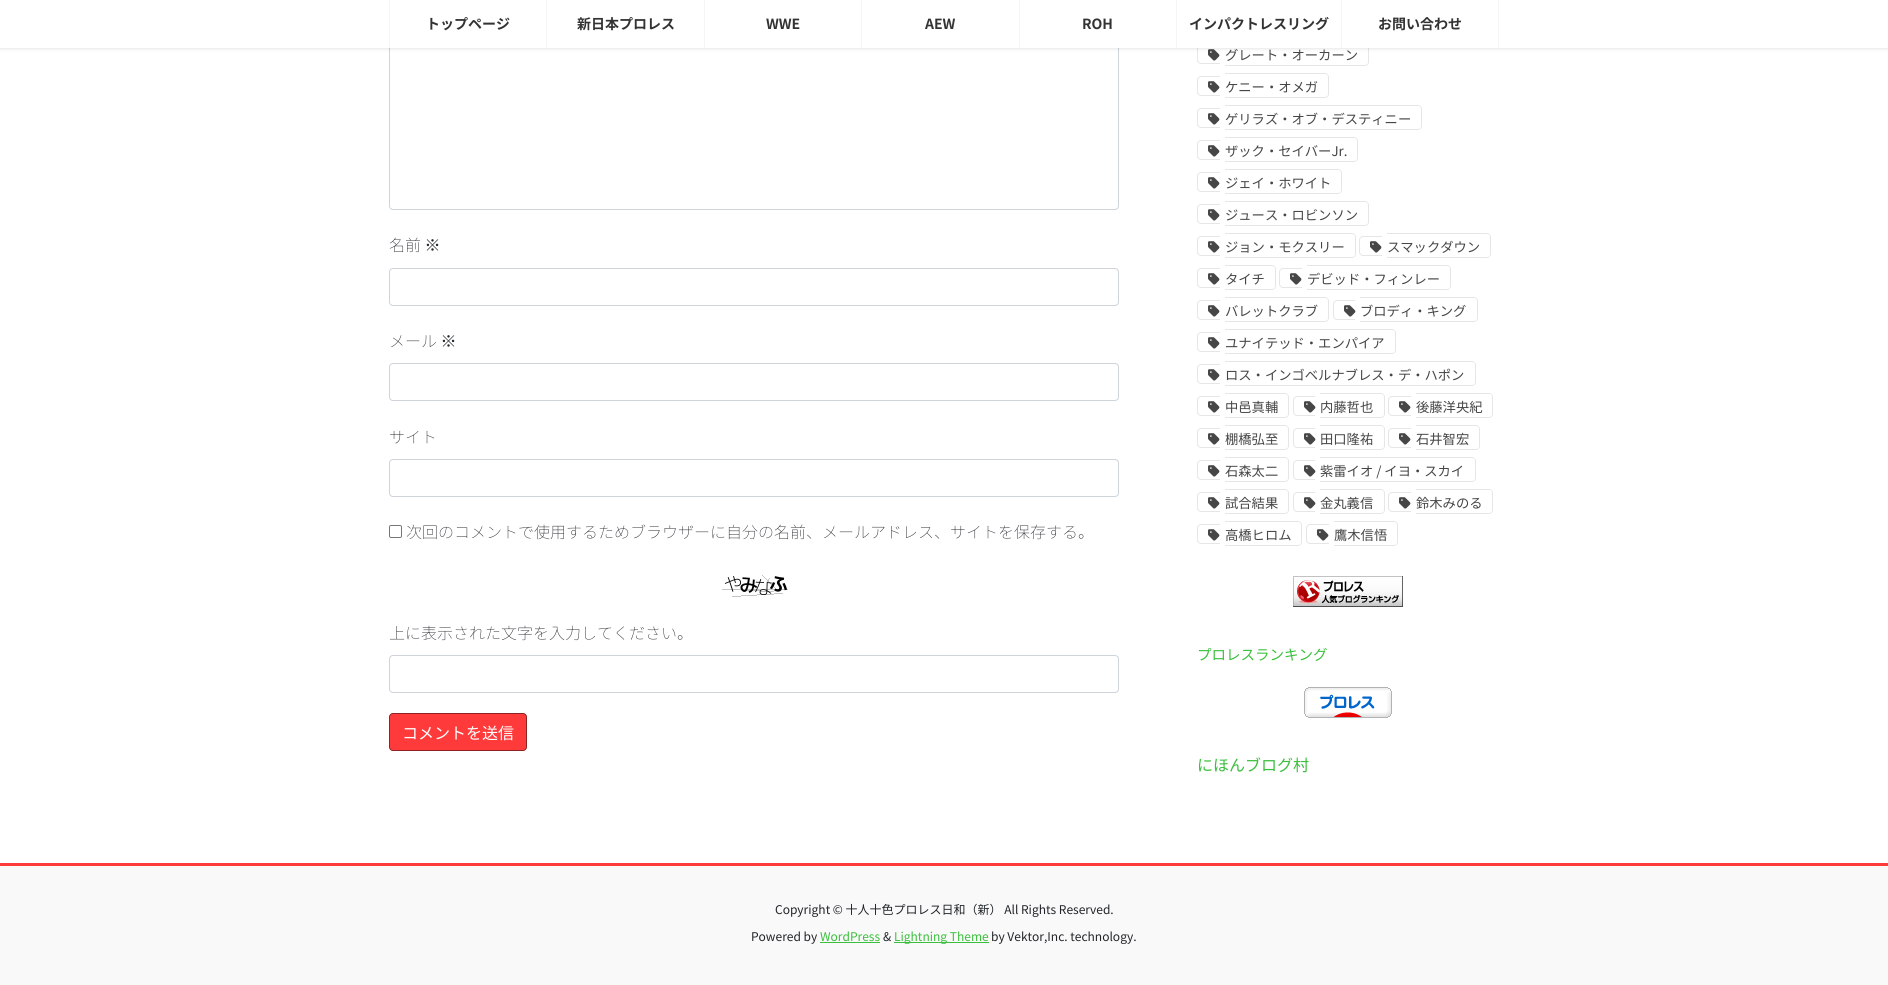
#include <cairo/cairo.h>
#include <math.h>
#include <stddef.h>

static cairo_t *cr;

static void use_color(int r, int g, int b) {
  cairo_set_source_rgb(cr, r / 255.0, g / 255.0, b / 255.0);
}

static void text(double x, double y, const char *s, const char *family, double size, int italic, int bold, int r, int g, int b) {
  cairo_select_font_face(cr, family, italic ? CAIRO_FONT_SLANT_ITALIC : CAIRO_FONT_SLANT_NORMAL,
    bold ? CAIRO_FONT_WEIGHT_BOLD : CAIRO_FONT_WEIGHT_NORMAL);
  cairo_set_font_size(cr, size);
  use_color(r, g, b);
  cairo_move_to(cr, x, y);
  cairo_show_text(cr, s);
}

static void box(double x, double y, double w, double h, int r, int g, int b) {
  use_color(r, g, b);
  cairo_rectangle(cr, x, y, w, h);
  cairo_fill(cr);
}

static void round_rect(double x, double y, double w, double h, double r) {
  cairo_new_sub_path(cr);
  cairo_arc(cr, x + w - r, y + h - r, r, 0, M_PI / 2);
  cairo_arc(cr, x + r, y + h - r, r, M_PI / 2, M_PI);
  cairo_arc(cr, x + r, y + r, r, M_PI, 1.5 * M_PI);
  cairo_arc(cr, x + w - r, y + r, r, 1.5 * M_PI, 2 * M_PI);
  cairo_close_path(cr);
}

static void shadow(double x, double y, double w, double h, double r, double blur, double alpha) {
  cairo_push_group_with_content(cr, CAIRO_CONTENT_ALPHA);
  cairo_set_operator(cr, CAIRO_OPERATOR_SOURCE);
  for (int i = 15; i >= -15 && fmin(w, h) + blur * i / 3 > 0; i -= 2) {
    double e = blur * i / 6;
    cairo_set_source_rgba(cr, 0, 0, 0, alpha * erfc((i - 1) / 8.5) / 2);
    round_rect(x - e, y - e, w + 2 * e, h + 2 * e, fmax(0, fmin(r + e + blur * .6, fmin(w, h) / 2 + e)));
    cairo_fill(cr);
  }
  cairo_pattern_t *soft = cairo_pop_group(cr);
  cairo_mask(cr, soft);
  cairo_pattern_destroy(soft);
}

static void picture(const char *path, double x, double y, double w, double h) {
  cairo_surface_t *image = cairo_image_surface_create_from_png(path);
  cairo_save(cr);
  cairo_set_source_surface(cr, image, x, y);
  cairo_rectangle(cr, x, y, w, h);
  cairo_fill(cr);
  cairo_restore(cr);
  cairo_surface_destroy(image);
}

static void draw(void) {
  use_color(255, 255, 255);
  cairo_paint(cr);
  round_rect(389.5, 4.5, 729, 205, 3.5);
  use_color(206, 212, 218);
  cairo_set_line_width(cr, 1);
  cairo_stroke(cr);
  use_color(230, 230, 230);
  cairo_set_fill_rule(cr, CAIRO_FILL_RULE_EVEN_ODD);
  cairo_new_path(cr);
  cairo_move_to(cr, 1201, 44);
  cairo_line_to(cr, 1220, 44);
  cairo_line_to(cr, 1220, 64);
  cairo_line_to(cr, 1201, 64);
  cairo_curve_to(cr, 1199, 64, 1197, 62, 1197, 60);
  cairo_line_to(cr, 1197, 48);
  cairo_curve_to(cr, 1197, 46, 1199, 44, 1201, 44);
  cairo_close_path(cr);
  cairo_move_to(cr, 1201, 45);
  cairo_line_to(cr, 1220, 45);
  cairo_line_to(cr, 1220, 63);
  cairo_line_to(cr, 1201, 63);
  cairo_curve_to(cr, 1199.5, 63, 1198, 61.5, 1198, 60);
  cairo_line_to(cr, 1198, 48);
  cairo_curve_to(cr, 1198, 46.5, 1199.5, 45, 1201, 45);
  cairo_close_path(cr);
  cairo_fill(cr);
  picture("img_02.png", 1208, 49, 12, 12);
  cairo_new_path(cr);
  cairo_move_to(cr, 1225, 41);
  cairo_line_to(cr, 1365, 41);
  cairo_curve_to(cr, 1367, 41, 1369, 43, 1369, 45);
  cairo_line_to(cr, 1369, 62);
  cairo_curve_to(cr, 1369, 64, 1367, 66, 1365, 66);
  cairo_line_to(cr, 1225, 66);
  cairo_close_path(cr);
  cairo_move_to(cr, 1225, 42);
  cairo_line_to(cr, 1365, 42);
  cairo_curve_to(cr, 1367, 42, 1368, 43, 1368, 45);
  cairo_line_to(cr, 1368, 62);
  cairo_curve_to(cr, 1368, 64, 1367, 65, 1365, 65);
  cairo_line_to(cr, 1225, 65);
  cairo_close_path(cr);
  cairo_fill(cr);
  use_color(0, 0, 0);
  shadow(0, 1, 1888, 48, 0, 1.5, 0.1);
  box(0, 0, 1888, 48, 255, 255, 255);
  box(389, 0, 1, 48, 245, 245, 245);
  box(546, 0, 1, 48, 245, 245, 245);
  box(704, 0, 1, 48, 245, 245, 245);
  box(861, 0, 1, 48, 245, 245, 245);
  box(1019, 0, 1, 48, 245, 245, 245);
  box(1176, 0, 1, 48, 245, 245, 245);
  box(1498, 0, 1, 48, 245, 245, 245);
  box(1341, 0, 1, 48, 245, 245, 245);
  round_rect(389.5, 268.5, 729, 37, 3.5);
  use_color(206, 212, 218);
  cairo_stroke(cr);
  round_rect(389.5, 363.5, 729, 37, 3.5);
  cairo_stroke(cr);
  round_rect(389.5, 459.5, 729, 37, 3.5);
  cairo_stroke(cr);
  round_rect(389.5, 525.5, 12, 12, 1.5);
  use_color(118, 118, 118);
  cairo_stroke(cr);
  picture("img_01.png", 722, 575, 66, 22);
  round_rect(389.5, 655.5, 729, 37, 3.5);
  use_color(206, 212, 218);
  cairo_stroke(cr);
  use_color(255, 58, 58);
  round_rect(389.5, 713.5, 137, 37, 3.5);
  cairo_fill_preserve(cr);
  use_color(140, 36, 36);
  cairo_stroke(cr);
  use_color(230, 230, 230);
  cairo_new_path(cr);
  cairo_move_to(cr, 1201, 76);
  cairo_line_to(cr, 1220, 76);
  cairo_line_to(cr, 1220, 96);
  cairo_line_to(cr, 1201, 96);
  cairo_curve_to(cr, 1199, 96, 1197, 94, 1197, 92);
  cairo_line_to(cr, 1197, 80);
  cairo_curve_to(cr, 1197, 78, 1199, 76, 1201, 76);
  cairo_close_path(cr);
  cairo_move_to(cr, 1201, 77);
  cairo_line_to(cr, 1220, 77);
  cairo_line_to(cr, 1220, 95);
  cairo_line_to(cr, 1201, 95);
  cairo_curve_to(cr, 1199.5, 95, 1198, 93.5, 1198, 92);
  cairo_line_to(cr, 1198, 80);
  cairo_curve_to(cr, 1198, 78.5, 1199.5, 77, 1201, 77);
  cairo_close_path(cr);
  cairo_fill(cr);
  picture("img_02.png", 1208, 81, 12, 12);
  cairo_new_path(cr);
  cairo_move_to(cr, 1225, 73);
  cairo_line_to(cr, 1325, 73);
  cairo_curve_to(cr, 1327, 73, 1329, 75, 1329, 77);
  cairo_line_to(cr, 1329, 94);
  cairo_curve_to(cr, 1329, 96, 1327, 98, 1325, 98);
  cairo_line_to(cr, 1225, 98);
  cairo_close_path(cr);
  cairo_move_to(cr, 1225, 74);
  cairo_line_to(cr, 1325, 74);
  cairo_curve_to(cr, 1327, 74, 1328, 75, 1328, 77);
  cairo_line_to(cr, 1328, 94);
  cairo_curve_to(cr, 1328, 96, 1327, 97, 1325, 97);
  cairo_line_to(cr, 1225, 97);
  cairo_close_path(cr);
  cairo_fill(cr);
  cairo_new_path(cr);
  cairo_move_to(cr, 1201, 108);
  cairo_line_to(cr, 1220, 108);
  cairo_line_to(cr, 1220, 128);
  cairo_line_to(cr, 1201, 128);
  cairo_curve_to(cr, 1199, 128, 1197, 126, 1197, 124);
  cairo_line_to(cr, 1197, 112);
  cairo_curve_to(cr, 1197, 110, 1199, 108, 1201, 108);
  cairo_close_path(cr);
  cairo_move_to(cr, 1201, 109);
  cairo_line_to(cr, 1220, 109);
  cairo_line_to(cr, 1220, 127);
  cairo_line_to(cr, 1201, 127);
  cairo_curve_to(cr, 1199.5, 127, 1198, 125.5, 1198, 124);
  cairo_line_to(cr, 1198, 112);
  cairo_curve_to(cr, 1198, 110.5, 1199.5, 109, 1201, 109);
  cairo_close_path(cr);
  cairo_fill(cr);
  picture("img_02.png", 1208, 113, 12, 12);
  cairo_new_path(cr);
  cairo_move_to(cr, 1225, 105);
  cairo_line_to(cr, 1418, 105);
  cairo_curve_to(cr, 1420, 105, 1422, 107, 1422, 109);
  cairo_line_to(cr, 1422, 126);
  cairo_curve_to(cr, 1422, 128, 1420, 130, 1418, 130);
  cairo_line_to(cr, 1225, 130);
  cairo_close_path(cr);
  cairo_move_to(cr, 1225, 106);
  cairo_line_to(cr, 1418, 106);
  cairo_curve_to(cr, 1420, 106, 1421, 107, 1421, 109);
  cairo_line_to(cr, 1421, 126);
  cairo_curve_to(cr, 1421, 128, 1420, 129, 1418, 129);
  cairo_line_to(cr, 1225, 129);
  cairo_close_path(cr);
  cairo_fill(cr);
  cairo_new_path(cr);
  cairo_move_to(cr, 1201, 140);
  cairo_line_to(cr, 1220, 140);
  cairo_line_to(cr, 1220, 160);
  cairo_line_to(cr, 1201, 160);
  cairo_curve_to(cr, 1199, 160, 1197, 158, 1197, 156);
  cairo_line_to(cr, 1197, 144);
  cairo_curve_to(cr, 1197, 142, 1199, 140, 1201, 140);
  cairo_close_path(cr);
  cairo_move_to(cr, 1201, 141);
  cairo_line_to(cr, 1220, 141);
  cairo_line_to(cr, 1220, 159);
  cairo_line_to(cr, 1201, 159);
  cairo_curve_to(cr, 1199.5, 159, 1198, 157.5, 1198, 156);
  cairo_line_to(cr, 1198, 144);
  cairo_curve_to(cr, 1198, 142.5, 1199.5, 141, 1201, 141);
  cairo_close_path(cr);
  cairo_fill(cr);
  picture("img_02.png", 1208, 145, 12, 12);
  cairo_new_path(cr);
  cairo_move_to(cr, 1225, 137);
  cairo_line_to(cr, 1354, 137);
  cairo_curve_to(cr, 1356, 137, 1358, 139, 1358, 141);
  cairo_line_to(cr, 1358, 158);
  cairo_curve_to(cr, 1358, 160, 1356, 162, 1354, 162);
  cairo_line_to(cr, 1225, 162);
  cairo_close_path(cr);
  cairo_move_to(cr, 1225, 138);
  cairo_line_to(cr, 1354, 138);
  cairo_curve_to(cr, 1356, 138, 1357, 139, 1357, 141);
  cairo_line_to(cr, 1357, 158);
  cairo_curve_to(cr, 1357, 160, 1356, 161, 1354, 161);
  cairo_line_to(cr, 1225, 161);
  cairo_close_path(cr);
  cairo_fill(cr);
  cairo_new_path(cr);
  cairo_move_to(cr, 1201, 172);
  cairo_line_to(cr, 1220, 172);
  cairo_line_to(cr, 1220, 192);
  cairo_line_to(cr, 1201, 192);
  cairo_curve_to(cr, 1199, 192, 1197, 190, 1197, 188);
  cairo_line_to(cr, 1197, 176);
  cairo_curve_to(cr, 1197, 174, 1199, 172, 1201, 172);
  cairo_close_path(cr);
  cairo_move_to(cr, 1201, 173);
  cairo_line_to(cr, 1220, 173);
  cairo_line_to(cr, 1220, 191);
  cairo_line_to(cr, 1201, 191);
  cairo_curve_to(cr, 1199.5, 191, 1198, 189.5, 1198, 188);
  cairo_line_to(cr, 1198, 176);
  cairo_curve_to(cr, 1198, 174.5, 1199.5, 173, 1201, 173);
  cairo_close_path(cr);
  cairo_fill(cr);
  picture("img_02.png", 1208, 177, 12, 12);
  cairo_new_path(cr);
  cairo_move_to(cr, 1225, 169);
  cairo_line_to(cr, 1338, 169);
  cairo_curve_to(cr, 1340, 169, 1342, 171, 1342, 173);
  cairo_line_to(cr, 1342, 190);
  cairo_curve_to(cr, 1342, 192, 1340, 194, 1338, 194);
  cairo_line_to(cr, 1225, 194);
  cairo_close_path(cr);
  cairo_move_to(cr, 1225, 170);
  cairo_line_to(cr, 1338, 170);
  cairo_curve_to(cr, 1340, 170, 1341, 171, 1341, 173);
  cairo_line_to(cr, 1341, 190);
  cairo_curve_to(cr, 1341, 192, 1340, 193, 1338, 193);
  cairo_line_to(cr, 1225, 193);
  cairo_close_path(cr);
  cairo_fill(cr);
  cairo_new_path(cr);
  cairo_move_to(cr, 1201, 204);
  cairo_line_to(cr, 1220, 204);
  cairo_line_to(cr, 1220, 224);
  cairo_line_to(cr, 1201, 224);
  cairo_curve_to(cr, 1199, 224, 1197, 222, 1197, 220);
  cairo_line_to(cr, 1197, 208);
  cairo_curve_to(cr, 1197, 206, 1199, 204, 1201, 204);
  cairo_close_path(cr);
  cairo_move_to(cr, 1201, 205);
  cairo_line_to(cr, 1220, 205);
  cairo_line_to(cr, 1220, 223);
  cairo_line_to(cr, 1201, 223);
  cairo_curve_to(cr, 1199.5, 223, 1198, 221.5, 1198, 220);
  cairo_line_to(cr, 1198, 208);
  cairo_curve_to(cr, 1198, 206.5, 1199.5, 205, 1201, 205);
  cairo_close_path(cr);
  cairo_fill(cr);
  picture("img_02.png", 1208, 209, 12, 12);
  cairo_new_path(cr);
  cairo_move_to(cr, 1225, 201);
  cairo_line_to(cr, 1365, 201);
  cairo_curve_to(cr, 1367, 201, 1369, 203, 1369, 205);
  cairo_line_to(cr, 1369, 222);
  cairo_curve_to(cr, 1369, 224, 1367, 226, 1365, 226);
  cairo_line_to(cr, 1225, 226);
  cairo_close_path(cr);
  cairo_move_to(cr, 1225, 202);
  cairo_line_to(cr, 1365, 202);
  cairo_curve_to(cr, 1367, 202, 1368, 203, 1368, 205);
  cairo_line_to(cr, 1368, 222);
  cairo_curve_to(cr, 1368, 224, 1367, 225, 1365, 225);
  cairo_line_to(cr, 1225, 225);
  cairo_close_path(cr);
  cairo_fill(cr);
  cairo_new_path(cr);
  cairo_move_to(cr, 1201, 236);
  cairo_line_to(cr, 1220, 236);
  cairo_line_to(cr, 1220, 256);
  cairo_line_to(cr, 1201, 256);
  cairo_curve_to(cr, 1199, 256, 1197, 254, 1197, 252);
  cairo_line_to(cr, 1197, 240);
  cairo_curve_to(cr, 1197, 238, 1199, 236, 1201, 236);
  cairo_close_path(cr);
  cairo_move_to(cr, 1201, 237);
  cairo_line_to(cr, 1220, 237);
  cairo_line_to(cr, 1220, 255);
  cairo_line_to(cr, 1201, 255);
  cairo_curve_to(cr, 1199.5, 255, 1198, 253.5, 1198, 252);
  cairo_line_to(cr, 1198, 240);
  cairo_curve_to(cr, 1198, 238.5, 1199.5, 237, 1201, 237);
  cairo_close_path(cr);
  cairo_fill(cr);
  picture("img_02.png", 1208, 241, 12, 12);
  cairo_new_path(cr);
  cairo_move_to(cr, 1225, 233);
  cairo_line_to(cr, 1352, 233);
  cairo_curve_to(cr, 1354, 233, 1356, 235, 1356, 237);
  cairo_line_to(cr, 1356, 254);
  cairo_curve_to(cr, 1356, 256, 1354, 258, 1352, 258);
  cairo_line_to(cr, 1225, 258);
  cairo_close_path(cr);
  cairo_move_to(cr, 1225, 234);
  cairo_line_to(cr, 1352, 234);
  cairo_curve_to(cr, 1354, 234, 1355, 235, 1355, 237);
  cairo_line_to(cr, 1355, 254);
  cairo_curve_to(cr, 1355, 256, 1354, 257, 1352, 257);
  cairo_line_to(cr, 1225, 257);
  cairo_close_path(cr);
  cairo_fill(cr);
  cairo_new_path(cr);
  cairo_move_to(cr, 1363, 236);
  cairo_line_to(cr, 1382, 236);
  cairo_line_to(cr, 1382, 256);
  cairo_line_to(cr, 1363, 256);
  cairo_curve_to(cr, 1361, 256, 1359, 254, 1359, 252);
  cairo_line_to(cr, 1359, 240);
  cairo_curve_to(cr, 1359, 238, 1361, 236, 1363, 236);
  cairo_close_path(cr);
  cairo_move_to(cr, 1363, 237);
  cairo_line_to(cr, 1382, 237);
  cairo_line_to(cr, 1382, 255);
  cairo_line_to(cr, 1363, 255);
  cairo_curve_to(cr, 1361.5, 255, 1360, 253.5, 1360, 252);
  cairo_line_to(cr, 1360, 240);
  cairo_curve_to(cr, 1360, 238.5, 1361.5, 237, 1363, 237);
  cairo_close_path(cr);
  cairo_fill(cr);
  picture("img_02.png", 1370, 241, 12, 12);
  cairo_new_path(cr);
  cairo_move_to(cr, 1387, 233);
  cairo_line_to(cr, 1487, 233);
  cairo_curve_to(cr, 1489, 233, 1491, 235, 1491, 237);
  cairo_line_to(cr, 1491, 254);
  cairo_curve_to(cr, 1491, 256, 1489, 258, 1487, 258);
  cairo_line_to(cr, 1387, 258);
  cairo_close_path(cr);
  cairo_move_to(cr, 1387, 234);
  cairo_line_to(cr, 1487, 234);
  cairo_curve_to(cr, 1489, 234, 1490, 235, 1490, 237);
  cairo_line_to(cr, 1490, 254);
  cairo_curve_to(cr, 1490, 256, 1489, 257, 1487, 257);
  cairo_line_to(cr, 1387, 257);
  cairo_close_path(cr);
  cairo_fill(cr);
  cairo_new_path(cr);
  cairo_move_to(cr, 1201, 268);
  cairo_line_to(cr, 1220, 268);
  cairo_line_to(cr, 1220, 288);
  cairo_line_to(cr, 1201, 288);
  cairo_curve_to(cr, 1199, 288, 1197, 286, 1197, 284);
  cairo_line_to(cr, 1197, 272);
  cairo_curve_to(cr, 1197, 270, 1199, 268, 1201, 268);
  cairo_close_path(cr);
  cairo_move_to(cr, 1201, 269);
  cairo_line_to(cr, 1220, 269);
  cairo_line_to(cr, 1220, 287);
  cairo_line_to(cr, 1201, 287);
  cairo_curve_to(cr, 1199.5, 287, 1198, 285.5, 1198, 284);
  cairo_line_to(cr, 1198, 272);
  cairo_curve_to(cr, 1198, 270.5, 1199.5, 269, 1201, 269);
  cairo_close_path(cr);
  cairo_fill(cr);
  picture("img_02.png", 1208, 273, 12, 12);
  cairo_new_path(cr);
  cairo_move_to(cr, 1225, 265);
  cairo_line_to(cr, 1272, 265);
  cairo_curve_to(cr, 1274, 265, 1276, 267, 1276, 269);
  cairo_line_to(cr, 1276, 286);
  cairo_curve_to(cr, 1276, 288, 1274, 290, 1272, 290);
  cairo_line_to(cr, 1225, 290);
  cairo_close_path(cr);
  cairo_move_to(cr, 1225, 266);
  cairo_line_to(cr, 1272, 266);
  cairo_curve_to(cr, 1274, 266, 1275, 267, 1275, 269);
  cairo_line_to(cr, 1275, 286);
  cairo_curve_to(cr, 1275, 288, 1274, 289, 1272, 289);
  cairo_line_to(cr, 1225, 289);
  cairo_close_path(cr);
  cairo_fill(cr);
  cairo_new_path(cr);
  cairo_move_to(cr, 1283, 268);
  cairo_line_to(cr, 1302, 268);
  cairo_line_to(cr, 1302, 288);
  cairo_line_to(cr, 1283, 288);
  cairo_curve_to(cr, 1281, 288, 1279, 286, 1279, 284);
  cairo_line_to(cr, 1279, 272);
  cairo_curve_to(cr, 1279, 270, 1281, 268, 1283, 268);
  cairo_close_path(cr);
  cairo_move_to(cr, 1283, 269);
  cairo_line_to(cr, 1302, 269);
  cairo_line_to(cr, 1302, 287);
  cairo_line_to(cr, 1283, 287);
  cairo_curve_to(cr, 1281.5, 287, 1280, 285.5, 1280, 284);
  cairo_line_to(cr, 1280, 272);
  cairo_curve_to(cr, 1280, 270.5, 1281.5, 269, 1283, 269);
  cairo_close_path(cr);
  cairo_fill(cr);
  picture("img_02.png", 1290, 273, 12, 12);
  cairo_new_path(cr);
  cairo_move_to(cr, 1307, 265);
  cairo_line_to(cr, 1447, 265);
  cairo_curve_to(cr, 1449, 265, 1451, 267, 1451, 269);
  cairo_line_to(cr, 1451, 286);
  cairo_curve_to(cr, 1451, 288, 1449, 290, 1447, 290);
  cairo_line_to(cr, 1307, 290);
  cairo_close_path(cr);
  cairo_move_to(cr, 1307, 266);
  cairo_line_to(cr, 1447, 266);
  cairo_curve_to(cr, 1449, 266, 1450, 267, 1450, 269);
  cairo_line_to(cr, 1450, 286);
  cairo_curve_to(cr, 1450, 288, 1449, 289, 1447, 289);
  cairo_line_to(cr, 1307, 289);
  cairo_close_path(cr);
  cairo_fill(cr);
  cairo_new_path(cr);
  cairo_move_to(cr, 1201, 300);
  cairo_line_to(cr, 1220, 300);
  cairo_line_to(cr, 1220, 320);
  cairo_line_to(cr, 1201, 320);
  cairo_curve_to(cr, 1199, 320, 1197, 318, 1197, 316);
  cairo_line_to(cr, 1197, 304);
  cairo_curve_to(cr, 1197, 302, 1199, 300, 1201, 300);
  cairo_close_path(cr);
  cairo_move_to(cr, 1201, 301);
  cairo_line_to(cr, 1220, 301);
  cairo_line_to(cr, 1220, 319);
  cairo_line_to(cr, 1201, 319);
  cairo_curve_to(cr, 1199.5, 319, 1198, 317.5, 1198, 316);
  cairo_line_to(cr, 1198, 304);
  cairo_curve_to(cr, 1198, 302.5, 1199.5, 301, 1201, 301);
  cairo_close_path(cr);
  cairo_fill(cr);
  picture("img_02.png", 1208, 305, 12, 12);
  cairo_new_path(cr);
  cairo_move_to(cr, 1225, 297);
  cairo_line_to(cr, 1325, 297);
  cairo_curve_to(cr, 1327, 297, 1329, 299, 1329, 301);
  cairo_line_to(cr, 1329, 318);
  cairo_curve_to(cr, 1329, 320, 1327, 322, 1325, 322);
  cairo_line_to(cr, 1225, 322);
  cairo_close_path(cr);
  cairo_move_to(cr, 1225, 298);
  cairo_line_to(cr, 1325, 298);
  cairo_curve_to(cr, 1327, 298, 1328, 299, 1328, 301);
  cairo_line_to(cr, 1328, 318);
  cairo_curve_to(cr, 1328, 320, 1327, 321, 1325, 321);
  cairo_line_to(cr, 1225, 321);
  cairo_close_path(cr);
  cairo_fill(cr);
  cairo_new_path(cr);
  cairo_move_to(cr, 1337, 300);
  cairo_line_to(cr, 1355, 300);
  cairo_line_to(cr, 1355, 320);
  cairo_line_to(cr, 1337, 320);
  cairo_curve_to(cr, 1335, 320, 1333, 318, 1333, 316);
  cairo_line_to(cr, 1333, 304);
  cairo_curve_to(cr, 1333, 302, 1335, 300, 1337, 300);
  cairo_close_path(cr);
  cairo_move_to(cr, 1337, 301);
  cairo_line_to(cr, 1355, 301);
  cairo_line_to(cr, 1355, 319);
  cairo_line_to(cr, 1337, 319);
  cairo_curve_to(cr, 1335.5, 319, 1334, 317.5, 1334, 316);
  cairo_line_to(cr, 1334, 304);
  cairo_curve_to(cr, 1334, 302.5, 1335.5, 301, 1337, 301);
  cairo_close_path(cr);
  cairo_fill(cr);
  picture("img_02.png", 1344, 305, 12, 12);
  cairo_new_path(cr);
  cairo_move_to(cr, 1360, 297);
  cairo_line_to(cr, 1474, 297);
  cairo_curve_to(cr, 1476, 297, 1478, 299, 1478, 301);
  cairo_line_to(cr, 1478, 318);
  cairo_curve_to(cr, 1478, 320, 1476, 322, 1474, 322);
  cairo_line_to(cr, 1360, 322);
  cairo_close_path(cr);
  cairo_move_to(cr, 1360, 298);
  cairo_line_to(cr, 1474, 298);
  cairo_curve_to(cr, 1476, 298, 1477, 299, 1477, 301);
  cairo_line_to(cr, 1477, 318);
  cairo_curve_to(cr, 1477, 320, 1476, 321, 1474, 321);
  cairo_line_to(cr, 1360, 321);
  cairo_close_path(cr);
  cairo_fill(cr);
  cairo_new_path(cr);
  cairo_move_to(cr, 1201, 332);
  cairo_line_to(cr, 1220, 332);
  cairo_line_to(cr, 1220, 352);
  cairo_line_to(cr, 1201, 352);
  cairo_curve_to(cr, 1199, 352, 1197, 350, 1197, 348);
  cairo_line_to(cr, 1197, 336);
  cairo_curve_to(cr, 1197, 334, 1199, 332, 1201, 332);
  cairo_close_path(cr);
  cairo_move_to(cr, 1201, 333);
  cairo_line_to(cr, 1220, 333);
  cairo_line_to(cr, 1220, 351);
  cairo_line_to(cr, 1201, 351);
  cairo_curve_to(cr, 1199.5, 351, 1198, 349.5, 1198, 348);
  cairo_line_to(cr, 1198, 336);
  cairo_curve_to(cr, 1198, 334.5, 1199.5, 333, 1201, 333);
  cairo_close_path(cr);
  cairo_fill(cr);
  picture("img_02.png", 1208, 337, 12, 12);
  cairo_new_path(cr);
  cairo_move_to(cr, 1225, 329);
  cairo_line_to(cr, 1392, 329);
  cairo_curve_to(cr, 1394, 329, 1396, 331, 1396, 333);
  cairo_line_to(cr, 1396, 350);
  cairo_curve_to(cr, 1396, 352, 1394, 354, 1392, 354);
  cairo_line_to(cr, 1225, 354);
  cairo_close_path(cr);
  cairo_move_to(cr, 1225, 330);
  cairo_line_to(cr, 1392, 330);
  cairo_curve_to(cr, 1394, 330, 1395, 331, 1395, 333);
  cairo_line_to(cr, 1395, 350);
  cairo_curve_to(cr, 1395, 352, 1394, 353, 1392, 353);
  cairo_line_to(cr, 1225, 353);
  cairo_close_path(cr);
  cairo_fill(cr);
  cairo_new_path(cr);
  cairo_move_to(cr, 1201, 364);
  cairo_line_to(cr, 1220, 364);
  cairo_line_to(cr, 1220, 384);
  cairo_line_to(cr, 1201, 384);
  cairo_curve_to(cr, 1199, 384, 1197, 382, 1197, 380);
  cairo_line_to(cr, 1197, 368);
  cairo_curve_to(cr, 1197, 366, 1199, 364, 1201, 364);
  cairo_close_path(cr);
  cairo_move_to(cr, 1201, 365);
  cairo_line_to(cr, 1220, 365);
  cairo_line_to(cr, 1220, 383);
  cairo_line_to(cr, 1201, 383);
  cairo_curve_to(cr, 1199.5, 383, 1198, 381.5, 1198, 380);
  cairo_line_to(cr, 1198, 368);
  cairo_curve_to(cr, 1198, 366.5, 1199.5, 365, 1201, 365);
  cairo_close_path(cr);
  cairo_fill(cr);
  picture("img_02.png", 1208, 369, 12, 12);
  cairo_new_path(cr);
  cairo_move_to(cr, 1225, 361);
  cairo_line_to(cr, 1472, 361);
  cairo_curve_to(cr, 1474, 361, 1476, 363, 1476, 365);
  cairo_line_to(cr, 1476, 382);
  cairo_curve_to(cr, 1476, 384, 1474, 386, 1472, 386);
  cairo_line_to(cr, 1225, 386);
  cairo_close_path(cr);
  cairo_move_to(cr, 1225, 362);
  cairo_line_to(cr, 1472, 362);
  cairo_curve_to(cr, 1474, 362, 1475, 363, 1475, 365);
  cairo_line_to(cr, 1475, 382);
  cairo_curve_to(cr, 1475, 384, 1474, 385, 1472, 385);
  cairo_line_to(cr, 1225, 385);
  cairo_close_path(cr);
  cairo_fill(cr);
  cairo_new_path(cr);
  cairo_move_to(cr, 1201, 396);
  cairo_line_to(cr, 1220, 396);
  cairo_line_to(cr, 1220, 416);
  cairo_line_to(cr, 1201, 416);
  cairo_curve_to(cr, 1199, 416, 1197, 414, 1197, 412);
  cairo_line_to(cr, 1197, 400);
  cairo_curve_to(cr, 1197, 398, 1199, 396, 1201, 396);
  cairo_close_path(cr);
  cairo_move_to(cr, 1201, 397);
  cairo_line_to(cr, 1220, 397);
  cairo_line_to(cr, 1220, 415);
  cairo_line_to(cr, 1201, 415);
  cairo_curve_to(cr, 1199.5, 415, 1198, 413.5, 1198, 412);
  cairo_line_to(cr, 1198, 400);
  cairo_curve_to(cr, 1198, 398.5, 1199.5, 397, 1201, 397);
  cairo_close_path(cr);
  cairo_fill(cr);
  picture("img_02.png", 1208, 401, 12, 12);
  cairo_new_path(cr);
  cairo_move_to(cr, 1225, 393);
  cairo_line_to(cr, 1285, 393);
  cairo_curve_to(cr, 1287, 393, 1289, 395, 1289, 397);
  cairo_line_to(cr, 1289, 414);
  cairo_curve_to(cr, 1289, 416, 1287, 418, 1285, 418);
  cairo_line_to(cr, 1225, 418);
  cairo_close_path(cr);
  cairo_move_to(cr, 1225, 394);
  cairo_line_to(cr, 1285, 394);
  cairo_curve_to(cr, 1287, 394, 1288, 395, 1288, 397);
  cairo_line_to(cr, 1288, 414);
  cairo_curve_to(cr, 1288, 416, 1287, 417, 1285, 417);
  cairo_line_to(cr, 1225, 417);
  cairo_close_path(cr);
  cairo_fill(cr);
  cairo_new_path(cr);
  cairo_move_to(cr, 1297, 396);
  cairo_line_to(cr, 1315, 396);
  cairo_line_to(cr, 1315, 416);
  cairo_line_to(cr, 1297, 416);
  cairo_curve_to(cr, 1295, 416, 1293, 414, 1293, 412);
  cairo_line_to(cr, 1293, 400);
  cairo_curve_to(cr, 1293, 398, 1295, 396, 1297, 396);
  cairo_close_path(cr);
  cairo_move_to(cr, 1297, 397);
  cairo_line_to(cr, 1315, 397);
  cairo_line_to(cr, 1315, 415);
  cairo_line_to(cr, 1297, 415);
  cairo_curve_to(cr, 1295.5, 415, 1294, 413.5, 1294, 412);
  cairo_line_to(cr, 1294, 400);
  cairo_curve_to(cr, 1294, 398.5, 1295.5, 397, 1297, 397);
  cairo_close_path(cr);
  cairo_fill(cr);
  picture("img_02.png", 1304, 401, 12, 12);
  cairo_new_path(cr);
  cairo_move_to(cr, 1320, 393);
  cairo_line_to(cr, 1381, 393);
  cairo_curve_to(cr, 1383, 393, 1385, 395, 1385, 397);
  cairo_line_to(cr, 1385, 414);
  cairo_curve_to(cr, 1385, 416, 1383, 418, 1381, 418);
  cairo_line_to(cr, 1320, 418);
  cairo_close_path(cr);
  cairo_move_to(cr, 1320, 394);
  cairo_line_to(cr, 1381, 394);
  cairo_curve_to(cr, 1383, 394, 1384, 395, 1384, 397);
  cairo_line_to(cr, 1384, 414);
  cairo_curve_to(cr, 1384, 416, 1383, 417, 1381, 417);
  cairo_line_to(cr, 1320, 417);
  cairo_close_path(cr);
  cairo_fill(cr);
  cairo_new_path(cr);
  cairo_move_to(cr, 1392, 396);
  cairo_line_to(cr, 1411, 396);
  cairo_line_to(cr, 1411, 416);
  cairo_line_to(cr, 1392, 416);
  cairo_curve_to(cr, 1390, 416, 1388, 414, 1388, 412);
  cairo_line_to(cr, 1388, 400);
  cairo_curve_to(cr, 1388, 398, 1390, 396, 1392, 396);
  cairo_close_path(cr);
  cairo_move_to(cr, 1392, 397);
  cairo_line_to(cr, 1411, 397);
  cairo_line_to(cr, 1411, 415);
  cairo_line_to(cr, 1392, 415);
  cairo_curve_to(cr, 1390.5, 415, 1389, 413.5, 1389, 412);
  cairo_line_to(cr, 1389, 400);
  cairo_curve_to(cr, 1389, 398.5, 1390.5, 397, 1392, 397);
  cairo_close_path(cr);
  cairo_fill(cr);
  picture("img_02.png", 1399, 401, 12, 12);
  cairo_new_path(cr);
  cairo_move_to(cr, 1416, 393);
  cairo_line_to(cr, 1489, 393);
  cairo_curve_to(cr, 1491, 393, 1493, 395, 1493, 397);
  cairo_line_to(cr, 1493, 414);
  cairo_curve_to(cr, 1493, 416, 1491, 418, 1489, 418);
  cairo_line_to(cr, 1416, 418);
  cairo_close_path(cr);
  cairo_move_to(cr, 1416, 394);
  cairo_line_to(cr, 1489, 394);
  cairo_curve_to(cr, 1491, 394, 1492, 395, 1492, 397);
  cairo_line_to(cr, 1492, 414);
  cairo_curve_to(cr, 1492, 416, 1491, 417, 1489, 417);
  cairo_line_to(cr, 1416, 417);
  cairo_close_path(cr);
  cairo_fill(cr);
  cairo_new_path(cr);
  cairo_move_to(cr, 1201, 428);
  cairo_line_to(cr, 1220, 428);
  cairo_line_to(cr, 1220, 448);
  cairo_line_to(cr, 1201, 448);
  cairo_curve_to(cr, 1199, 448, 1197, 446, 1197, 444);
  cairo_line_to(cr, 1197, 432);
  cairo_curve_to(cr, 1197, 430, 1199, 428, 1201, 428);
  cairo_close_path(cr);
  cairo_move_to(cr, 1201, 429);
  cairo_line_to(cr, 1220, 429);
  cairo_line_to(cr, 1220, 447);
  cairo_line_to(cr, 1201, 447);
  cairo_curve_to(cr, 1199.5, 447, 1198, 445.5, 1198, 444);
  cairo_line_to(cr, 1198, 432);
  cairo_curve_to(cr, 1198, 430.5, 1199.5, 429, 1201, 429);
  cairo_close_path(cr);
  cairo_fill(cr);
  picture("img_02.png", 1208, 433, 12, 12);
  cairo_new_path(cr);
  cairo_move_to(cr, 1225, 425);
  cairo_line_to(cr, 1285, 425);
  cairo_curve_to(cr, 1287, 425, 1289, 427, 1289, 429);
  cairo_line_to(cr, 1289, 446);
  cairo_curve_to(cr, 1289, 448, 1287, 450, 1285, 450);
  cairo_line_to(cr, 1225, 450);
  cairo_close_path(cr);
  cairo_move_to(cr, 1225, 426);
  cairo_line_to(cr, 1285, 426);
  cairo_curve_to(cr, 1287, 426, 1288, 427, 1288, 429);
  cairo_line_to(cr, 1288, 446);
  cairo_curve_to(cr, 1288, 448, 1287, 449, 1285, 449);
  cairo_line_to(cr, 1225, 449);
  cairo_close_path(cr);
  cairo_fill(cr);
  cairo_new_path(cr);
  cairo_move_to(cr, 1297, 428);
  cairo_line_to(cr, 1315, 428);
  cairo_line_to(cr, 1315, 448);
  cairo_line_to(cr, 1297, 448);
  cairo_curve_to(cr, 1295, 448, 1293, 446, 1293, 444);
  cairo_line_to(cr, 1293, 432);
  cairo_curve_to(cr, 1293, 430, 1295, 428, 1297, 428);
  cairo_close_path(cr);
  cairo_move_to(cr, 1297, 429);
  cairo_line_to(cr, 1315, 429);
  cairo_line_to(cr, 1315, 447);
  cairo_line_to(cr, 1297, 447);
  cairo_curve_to(cr, 1295.5, 447, 1294, 445.5, 1294, 444);
  cairo_line_to(cr, 1294, 432);
  cairo_curve_to(cr, 1294, 430.5, 1295.5, 429, 1297, 429);
  cairo_close_path(cr);
  cairo_fill(cr);
  picture("img_02.png", 1304, 433, 12, 12);
  cairo_new_path(cr);
  cairo_move_to(cr, 1320, 425);
  cairo_line_to(cr, 1381, 425);
  cairo_curve_to(cr, 1383, 425, 1385, 427, 1385, 429);
  cairo_line_to(cr, 1385, 446);
  cairo_curve_to(cr, 1385, 448, 1383, 450, 1381, 450);
  cairo_line_to(cr, 1320, 450);
  cairo_close_path(cr);
  cairo_move_to(cr, 1320, 426);
  cairo_line_to(cr, 1381, 426);
  cairo_curve_to(cr, 1383, 426, 1384, 427, 1384, 429);
  cairo_line_to(cr, 1384, 446);
  cairo_curve_to(cr, 1384, 448, 1383, 449, 1381, 449);
  cairo_line_to(cr, 1320, 449);
  cairo_close_path(cr);
  cairo_fill(cr);
  cairo_new_path(cr);
  cairo_move_to(cr, 1392, 428);
  cairo_line_to(cr, 1411, 428);
  cairo_line_to(cr, 1411, 448);
  cairo_line_to(cr, 1392, 448);
  cairo_curve_to(cr, 1390, 448, 1388, 446, 1388, 444);
  cairo_line_to(cr, 1388, 432);
  cairo_curve_to(cr, 1388, 430, 1390, 428, 1392, 428);
  cairo_close_path(cr);
  cairo_move_to(cr, 1392, 429);
  cairo_line_to(cr, 1411, 429);
  cairo_line_to(cr, 1411, 447);
  cairo_line_to(cr, 1392, 447);
  cairo_curve_to(cr, 1390.5, 447, 1389, 445.5, 1389, 444);
  cairo_line_to(cr, 1389, 432);
  cairo_curve_to(cr, 1389, 430.5, 1390.5, 429, 1392, 429);
  cairo_close_path(cr);
  cairo_fill(cr);
  picture("img_02.png", 1399, 433, 12, 12);
  cairo_new_path(cr);
  cairo_move_to(cr, 1416, 425);
  cairo_line_to(cr, 1476, 425);
  cairo_curve_to(cr, 1478, 425, 1480, 427, 1480, 429);
  cairo_line_to(cr, 1480, 446);
  cairo_curve_to(cr, 1480, 448, 1478, 450, 1476, 450);
  cairo_line_to(cr, 1416, 450);
  cairo_close_path(cr);
  cairo_move_to(cr, 1416, 426);
  cairo_line_to(cr, 1476, 426);
  cairo_curve_to(cr, 1478, 426, 1479, 427, 1479, 429);
  cairo_line_to(cr, 1479, 446);
  cairo_curve_to(cr, 1479, 448, 1478, 449, 1476, 449);
  cairo_line_to(cr, 1416, 449);
  cairo_close_path(cr);
  cairo_fill(cr);
  cairo_new_path(cr);
  cairo_move_to(cr, 1201, 460);
  cairo_line_to(cr, 1220, 460);
  cairo_line_to(cr, 1220, 480);
  cairo_line_to(cr, 1201, 480);
  cairo_curve_to(cr, 1199, 480, 1197, 478, 1197, 476);
  cairo_line_to(cr, 1197, 464);
  cairo_curve_to(cr, 1197, 462, 1199, 460, 1201, 460);
  cairo_close_path(cr);
  cairo_move_to(cr, 1201, 461);
  cairo_line_to(cr, 1220, 461);
  cairo_line_to(cr, 1220, 479);
  cairo_line_to(cr, 1201, 479);
  cairo_curve_to(cr, 1199.5, 479, 1198, 477.5, 1198, 476);
  cairo_line_to(cr, 1198, 464);
  cairo_curve_to(cr, 1198, 462.5, 1199.5, 461, 1201, 461);
  cairo_close_path(cr);
  cairo_fill(cr);
  picture("img_02.png", 1208, 465, 12, 12);
  cairo_new_path(cr);
  cairo_move_to(cr, 1225, 457);
  cairo_line_to(cr, 1285, 457);
  cairo_curve_to(cr, 1287, 457, 1289, 459, 1289, 461);
  cairo_line_to(cr, 1289, 478);
  cairo_curve_to(cr, 1289, 480, 1287, 482, 1285, 482);
  cairo_line_to(cr, 1225, 482);
  cairo_close_path(cr);
  cairo_move_to(cr, 1225, 458);
  cairo_line_to(cr, 1285, 458);
  cairo_curve_to(cr, 1287, 458, 1288, 459, 1288, 461);
  cairo_line_to(cr, 1288, 478);
  cairo_curve_to(cr, 1288, 480, 1287, 481, 1285, 481);
  cairo_line_to(cr, 1225, 481);
  cairo_close_path(cr);
  cairo_fill(cr);
  cairo_new_path(cr);
  cairo_move_to(cr, 1297, 460);
  cairo_line_to(cr, 1315, 460);
  cairo_line_to(cr, 1315, 480);
  cairo_line_to(cr, 1297, 480);
  cairo_curve_to(cr, 1295, 480, 1293, 478, 1293, 476);
  cairo_line_to(cr, 1293, 464);
  cairo_curve_to(cr, 1293, 462, 1295, 460, 1297, 460);
  cairo_close_path(cr);
  cairo_move_to(cr, 1297, 461);
  cairo_line_to(cr, 1315, 461);
  cairo_line_to(cr, 1315, 479);
  cairo_line_to(cr, 1297, 479);
  cairo_curve_to(cr, 1295.5, 479, 1294, 477.5, 1294, 476);
  cairo_line_to(cr, 1294, 464);
  cairo_curve_to(cr, 1294, 462.5, 1295.5, 461, 1297, 461);
  cairo_close_path(cr);
  cairo_fill(cr);
  picture("img_02.png", 1304, 465, 12, 12);
  cairo_new_path(cr);
  cairo_move_to(cr, 1320, 457);
  cairo_line_to(cr, 1472, 457);
  cairo_curve_to(cr, 1474, 457, 1476, 459, 1476, 461);
  cairo_line_to(cr, 1476, 478);
  cairo_curve_to(cr, 1476, 480, 1474, 482, 1472, 482);
  cairo_line_to(cr, 1320, 482);
  cairo_close_path(cr);
  cairo_move_to(cr, 1320, 458);
  cairo_line_to(cr, 1472, 458);
  cairo_curve_to(cr, 1474, 458, 1475, 459, 1475, 461);
  cairo_line_to(cr, 1475, 478);
  cairo_curve_to(cr, 1475, 480, 1474, 481, 1472, 481);
  cairo_line_to(cr, 1320, 481);
  cairo_close_path(cr);
  cairo_fill(cr);
  cairo_new_path(cr);
  cairo_move_to(cr, 1201, 492);
  cairo_line_to(cr, 1220, 492);
  cairo_line_to(cr, 1220, 512);
  cairo_line_to(cr, 1201, 512);
  cairo_curve_to(cr, 1199, 512, 1197, 510, 1197, 508);
  cairo_line_to(cr, 1197, 496);
  cairo_curve_to(cr, 1197, 494, 1199, 492, 1201, 492);
  cairo_close_path(cr);
  cairo_move_to(cr, 1201, 493);
  cairo_line_to(cr, 1220, 493);
  cairo_line_to(cr, 1220, 511);
  cairo_line_to(cr, 1201, 511);
  cairo_curve_to(cr, 1199.5, 511, 1198, 509.5, 1198, 508);
  cairo_line_to(cr, 1198, 496);
  cairo_curve_to(cr, 1198, 494.5, 1199.5, 493, 1201, 493);
  cairo_close_path(cr);
  cairo_fill(cr);
  picture("img_02.png", 1208, 497, 12, 12);
  cairo_new_path(cr);
  cairo_move_to(cr, 1225, 489);
  cairo_line_to(cr, 1285, 489);
  cairo_curve_to(cr, 1287, 489, 1289, 491, 1289, 493);
  cairo_line_to(cr, 1289, 510);
  cairo_curve_to(cr, 1289, 512, 1287, 514, 1285, 514);
  cairo_line_to(cr, 1225, 514);
  cairo_close_path(cr);
  cairo_move_to(cr, 1225, 490);
  cairo_line_to(cr, 1285, 490);
  cairo_curve_to(cr, 1287, 490, 1288, 491, 1288, 493);
  cairo_line_to(cr, 1288, 510);
  cairo_curve_to(cr, 1288, 512, 1287, 513, 1285, 513);
  cairo_line_to(cr, 1225, 513);
  cairo_close_path(cr);
  cairo_fill(cr);
  cairo_new_path(cr);
  cairo_move_to(cr, 1297, 492);
  cairo_line_to(cr, 1315, 492);
  cairo_line_to(cr, 1315, 512);
  cairo_line_to(cr, 1297, 512);
  cairo_curve_to(cr, 1295, 512, 1293, 510, 1293, 508);
  cairo_line_to(cr, 1293, 496);
  cairo_curve_to(cr, 1293, 494, 1295, 492, 1297, 492);
  cairo_close_path(cr);
  cairo_move_to(cr, 1297, 493);
  cairo_line_to(cr, 1315, 493);
  cairo_line_to(cr, 1315, 511);
  cairo_line_to(cr, 1297, 511);
  cairo_curve_to(cr, 1295.5, 511, 1294, 509.5, 1294, 508);
  cairo_line_to(cr, 1294, 496);
  cairo_curve_to(cr, 1294, 494.5, 1295.5, 493, 1297, 493);
  cairo_close_path(cr);
  cairo_fill(cr);
  picture("img_02.png", 1304, 497, 12, 12);
  cairo_new_path(cr);
  cairo_move_to(cr, 1320, 489);
  cairo_line_to(cr, 1381, 489);
  cairo_curve_to(cr, 1383, 489, 1385, 491, 1385, 493);
  cairo_line_to(cr, 1385, 510);
  cairo_curve_to(cr, 1385, 512, 1383, 514, 1381, 514);
  cairo_line_to(cr, 1320, 514);
  cairo_close_path(cr);
  cairo_move_to(cr, 1320, 490);
  cairo_line_to(cr, 1381, 490);
  cairo_curve_to(cr, 1383, 490, 1384, 491, 1384, 493);
  cairo_line_to(cr, 1384, 510);
  cairo_curve_to(cr, 1384, 512, 1383, 513, 1381, 513);
  cairo_line_to(cr, 1320, 513);
  cairo_close_path(cr);
  cairo_fill(cr);
  cairo_new_path(cr);
  cairo_move_to(cr, 1392, 492);
  cairo_line_to(cr, 1411, 492);
  cairo_line_to(cr, 1411, 512);
  cairo_line_to(cr, 1392, 512);
  cairo_curve_to(cr, 1390, 512, 1388, 510, 1388, 508);
  cairo_line_to(cr, 1388, 496);
  cairo_curve_to(cr, 1388, 494, 1390, 492, 1392, 492);
  cairo_close_path(cr);
  cairo_move_to(cr, 1392, 493);
  cairo_line_to(cr, 1411, 493);
  cairo_line_to(cr, 1411, 511);
  cairo_line_to(cr, 1392, 511);
  cairo_curve_to(cr, 1390.5, 511, 1389, 509.5, 1389, 508);
  cairo_line_to(cr, 1389, 496);
  cairo_curve_to(cr, 1389, 494.5, 1390.5, 493, 1392, 493);
  cairo_close_path(cr);
  cairo_fill(cr);
  picture("img_02.png", 1399, 497, 12, 12);
  cairo_new_path(cr);
  cairo_move_to(cr, 1416, 489);
  cairo_line_to(cr, 1489, 489);
  cairo_curve_to(cr, 1491, 489, 1493, 491, 1493, 493);
  cairo_line_to(cr, 1493, 510);
  cairo_curve_to(cr, 1493, 512, 1491, 514, 1489, 514);
  cairo_line_to(cr, 1416, 514);
  cairo_close_path(cr);
  cairo_move_to(cr, 1416, 490);
  cairo_line_to(cr, 1489, 490);
  cairo_curve_to(cr, 1491, 490, 1492, 491, 1492, 493);
  cairo_line_to(cr, 1492, 510);
  cairo_curve_to(cr, 1492, 512, 1491, 513, 1489, 513);
  cairo_line_to(cr, 1416, 513);
  cairo_close_path(cr);
  cairo_fill(cr);
  cairo_new_path(cr);
  cairo_move_to(cr, 1201, 524);
  cairo_line_to(cr, 1220, 524);
  cairo_line_to(cr, 1220, 544);
  cairo_line_to(cr, 1201, 544);
  cairo_curve_to(cr, 1199, 544, 1197, 542, 1197, 540);
  cairo_line_to(cr, 1197, 528);
  cairo_curve_to(cr, 1197, 526, 1199, 524, 1201, 524);
  cairo_close_path(cr);
  cairo_move_to(cr, 1201, 525);
  cairo_line_to(cr, 1220, 525);
  cairo_line_to(cr, 1220, 543);
  cairo_line_to(cr, 1201, 543);
  cairo_curve_to(cr, 1199.5, 543, 1198, 541.5, 1198, 540);
  cairo_line_to(cr, 1198, 528);
  cairo_curve_to(cr, 1198, 526.5, 1199.5, 525, 1201, 525);
  cairo_close_path(cr);
  cairo_fill(cr);
  picture("img_02.png", 1208, 529, 12, 12);
  cairo_new_path(cr);
  cairo_move_to(cr, 1225, 521);
  cairo_line_to(cr, 1298, 521);
  cairo_curve_to(cr, 1300, 521, 1302, 523, 1302, 525);
  cairo_line_to(cr, 1302, 542);
  cairo_curve_to(cr, 1302, 544, 1300, 546, 1298, 546);
  cairo_line_to(cr, 1225, 546);
  cairo_close_path(cr);
  cairo_move_to(cr, 1225, 522);
  cairo_line_to(cr, 1298, 522);
  cairo_curve_to(cr, 1300, 522, 1301, 523, 1301, 525);
  cairo_line_to(cr, 1301, 542);
  cairo_curve_to(cr, 1301, 544, 1300, 545, 1298, 545);
  cairo_line_to(cr, 1225, 545);
  cairo_close_path(cr);
  cairo_fill(cr);
  cairo_new_path(cr);
  cairo_move_to(cr, 1310, 524);
  cairo_line_to(cr, 1329, 524);
  cairo_line_to(cr, 1329, 544);
  cairo_line_to(cr, 1310, 544);
  cairo_curve_to(cr, 1308, 544, 1306, 542, 1306, 540);
  cairo_line_to(cr, 1306, 528);
  cairo_curve_to(cr, 1306, 526, 1308, 524, 1310, 524);
  cairo_close_path(cr);
  cairo_move_to(cr, 1310, 525);
  cairo_line_to(cr, 1329, 525);
  cairo_line_to(cr, 1329, 543);
  cairo_line_to(cr, 1310, 543);
  cairo_curve_to(cr, 1308.5, 543, 1307, 541.5, 1307, 540);
  cairo_line_to(cr, 1307, 528);
  cairo_curve_to(cr, 1307, 526.5, 1308.5, 525, 1310, 525);
  cairo_close_path(cr);
  cairo_fill(cr);
  picture("img_02.png", 1317, 529, 12, 12);
  cairo_new_path(cr);
  cairo_move_to(cr, 1334, 521);
  cairo_line_to(cr, 1394, 521);
  cairo_curve_to(cr, 1396, 521, 1398, 523, 1398, 525);
  cairo_line_to(cr, 1398, 542);
  cairo_curve_to(cr, 1398, 544, 1396, 546, 1394, 546);
  cairo_line_to(cr, 1334, 546);
  cairo_close_path(cr);
  cairo_move_to(cr, 1334, 522);
  cairo_line_to(cr, 1394, 522);
  cairo_curve_to(cr, 1396, 522, 1397, 523, 1397, 525);
  cairo_line_to(cr, 1397, 542);
  cairo_curve_to(cr, 1397, 544, 1396, 545, 1394, 545);
  cairo_line_to(cr, 1334, 545);
  cairo_close_path(cr);
  cairo_fill(cr);
  picture("img_03.png", 1293, 576, 110, 31);
  picture("img_04.png", 1304, 687, 88, 31);
  box(0, 866, 1888, 119, 249, 249, 249);
  box(0, 863, 1888, 3, 255, 58, 58);
  box(820, 942, 60, 1, 59, 191, 61);
  box(894, 942, 95, 1, 59, 191, 61);
  text(426, 29, "トップページ", "Noto Sans JP", 14, 0, 1, 51, 51, 51);
  text(577, 29, "新日本プロレス", "Noto Sans JP", 14, 0, 1, 51, 51, 51);
  text(766, 29, "WWE", "Noto Sans JP", 14, 0, 1, 51, 51, 51);
  text(925, 29, "AEW", "Noto Sans JP", 14, 0, 1, 51, 51, 51);
  text(1082, 29, "ROH", "Noto Sans JP", 14, 0, 1, 51, 51, 51);
  text(1189, 29, "インパクトレスリング", "Noto Sans JP", 14, 0, 1, 51, 51, 51);
  text(1378, 29, "お問い合わせ", "Noto Sans JP", 14, 0, 1, 51, 51, 51);
  text(389, 251, "名前 ※", "Noto Sans JP Thin", 16, 0, 0, 33, 37, 41);
  text(389, 347, "メール ※", "Noto Sans JP Thin", 16, 0, 0, 33, 37, 41);
  text(389, 443, "サイト", "Noto Sans JP Thin", 16, 0, 0, 33, 37, 41);
  text(406, 538, "次回のコメントで使用するためブラウザーに自分の名前、メールアドレス、サイトを保存する。", "Noto Sans JP Thin", 16, 0, 0, 33, 37, 41);
  text(389, 639, "上に表示された文字を入力してください。", "Noto Sans JP Thin", 16, 0, 0, 33, 37, 41);
  text(402, 739, "コメントを送信", "Noto Sans JP", 16, 0, 0, 255, 255, 255);
  text(1225, 60, "グレート・オーカーン", "Noto Sans JP", 13.3, 0, 0, 70, 70, 70);
  text(1225, 92, "ケニー・オメガ", "Noto Sans JP", 13.3, 0, 0, 70, 70, 70);
  text(1225, 124, "ゲリラズ・オブ・デスティニー", "Noto Sans JP", 13.3, 0, 0, 70, 70, 70);
  text(1225, 156, "ザック・セイバーJr.", "Noto Sans JP", 13.3, 0, 0, 70, 70, 70);
  text(1225, 188, "ジェイ・ホワイト", "Noto Sans JP", 13.3, 0, 0, 70, 70, 70);
  text(1225, 220, "ジュース・ロビンソン", "Noto Sans JP", 13.3, 0, 0, 70, 70, 70);
  text(1225, 252, "ジョン・モクスリー", "Noto Sans JP", 13.3, 0, 0, 70, 70, 70);
  text(1387, 252, "スマックダウン", "Noto Sans JP", 13.3, 0, 0, 70, 70, 70);
  text(1225, 284, "タイチ", "Noto Sans JP", 13.3, 0, 0, 70, 70, 70);
  text(1307, 284, "デビッド・フィンレー", "Noto Sans JP", 13.3, 0, 0, 70, 70, 70);
  text(1225, 316, "バレットクラブ", "Noto Sans JP", 13.3, 0, 0, 70, 70, 70);
  text(1360, 316, "ブロディ・キング", "Noto Sans JP", 13.3, 0, 0, 70, 70, 70);
  text(1225, 348, "ユナイテッド・エンパイア", "Noto Sans JP", 13.3, 0, 0, 70, 70, 70);
  text(1225, 380, "ロス・インゴベルナブレス・デ・ハポン", "Noto Sans JP", 13.3, 0, 0, 70, 70, 70);
  text(1225, 412, "中邑真輔", "Noto Sans JP", 13.3, 0, 0, 70, 70, 70);
  text(1320, 412, "内藤哲也", "Noto Sans JP", 13.3, 0, 0, 70, 70, 70);
  text(1416, 412, "後藤洋央紀", "Noto Sans JP", 13.3, 0, 0, 70, 70, 70);
  text(1225, 444, "棚橋弘至", "Noto Sans JP", 13.3, 0, 0, 70, 70, 70);
  text(1320, 444, "田口隆祐", "Noto Sans JP", 13.3, 0, 0, 70, 70, 70);
  text(1416, 444, "石井智宏", "Noto Sans JP", 13.3, 0, 0, 70, 70, 70);
  text(1225, 476, "石森太二", "Noto Sans JP", 13.3, 0, 0, 70, 70, 70);
  text(1320, 476, "紫雷イオ / イヨ・スカイ", "Noto Sans JP", 13.3, 0, 0, 70, 70, 70);
  text(1225, 508, "試合結果", "Noto Sans JP", 13.3, 0, 0, 70, 70, 70);
  text(1320, 508, "金丸義信", "Noto Sans JP", 13.3, 0, 0, 70, 70, 70);
  text(1416, 508, "鈴木みのる", "Noto Sans JP", 13.3, 0, 0, 70, 70, 70);
  text(1225, 540, "高橋ヒロム", "Noto Sans JP", 13.3, 0, 0, 70, 70, 70);
  text(1334, 540, "鷹木信悟", "Noto Sans JP", 13.3, 0, 0, 70, 70, 70);
  text(1197, 660, "プロレスランキング", "Noto Sans JP", 14.5, 0, 0, 59, 191, 61);
  text(1197, 771, "にほんブログ村", "Noto Sans JP", 16, 0, 0, 59, 191, 61);
  text(775, 914, "Copyright © 十人十色プロレス日和（新） All Rights Reserved.", "Noto Sans JP", 12, 0, 0, 33, 37, 41);
  text(751, 941, "Powered by", "Noto Sans JP", 12, 0, 0, 33, 37, 41);
  text(820, 941, "WordPress", "Noto Sans JP", 12, 0, 0, 59, 191, 61);
  text(883, 941, "&", "Noto Sans JP", 12, 0, 0, 33, 37, 41);
  text(894, 941, "Lightning Theme", "Noto Sans JP", 12, 0, 0, 59, 191, 61);
  text(991, 941, "by Vektor,Inc. technology.", "Noto Sans JP", 12, 0, 0, 33, 37, 41);
}

int main(void) {
  cairo_surface_t *surface = cairo_image_surface_create(CAIRO_FORMAT_RGB24, 1888, 985);
  cr = cairo_create(surface);
  cairo_font_options_t *options = cairo_font_options_create();
  cairo_font_options_set_hint_metrics(options, CAIRO_HINT_METRICS_OFF);
  cairo_font_options_set_hint_style(options, CAIRO_HINT_STYLE_NONE);
  cairo_set_font_options(cr, options);
  cairo_set_miter_limit(cr, 4);
  draw();
  cairo_surface_write_to_png(surface, "out.png");
  cairo_font_options_destroy(options);
  cairo_destroy(cr);
  cairo_surface_destroy(surface);
  return 0;
}
